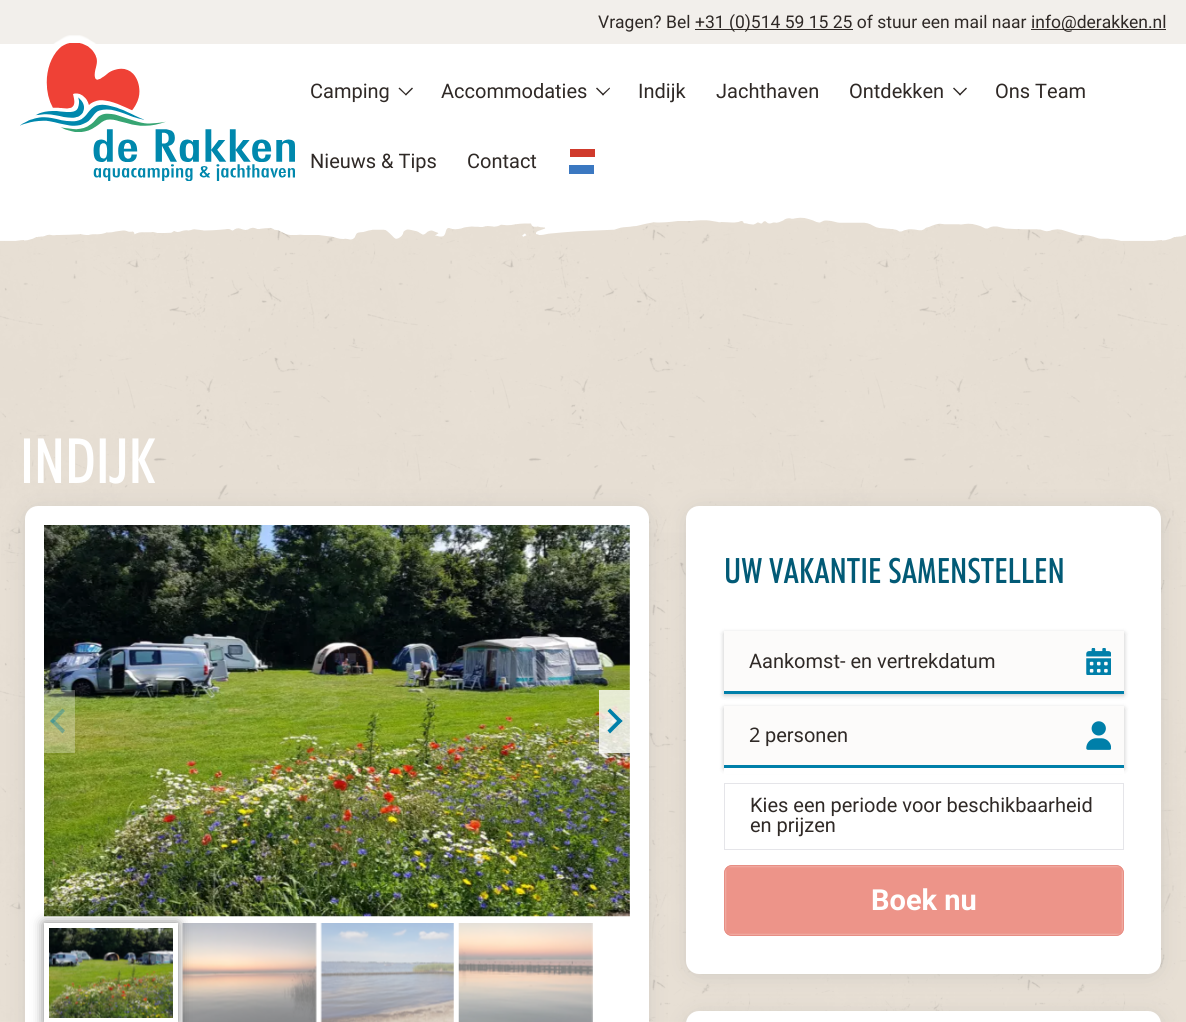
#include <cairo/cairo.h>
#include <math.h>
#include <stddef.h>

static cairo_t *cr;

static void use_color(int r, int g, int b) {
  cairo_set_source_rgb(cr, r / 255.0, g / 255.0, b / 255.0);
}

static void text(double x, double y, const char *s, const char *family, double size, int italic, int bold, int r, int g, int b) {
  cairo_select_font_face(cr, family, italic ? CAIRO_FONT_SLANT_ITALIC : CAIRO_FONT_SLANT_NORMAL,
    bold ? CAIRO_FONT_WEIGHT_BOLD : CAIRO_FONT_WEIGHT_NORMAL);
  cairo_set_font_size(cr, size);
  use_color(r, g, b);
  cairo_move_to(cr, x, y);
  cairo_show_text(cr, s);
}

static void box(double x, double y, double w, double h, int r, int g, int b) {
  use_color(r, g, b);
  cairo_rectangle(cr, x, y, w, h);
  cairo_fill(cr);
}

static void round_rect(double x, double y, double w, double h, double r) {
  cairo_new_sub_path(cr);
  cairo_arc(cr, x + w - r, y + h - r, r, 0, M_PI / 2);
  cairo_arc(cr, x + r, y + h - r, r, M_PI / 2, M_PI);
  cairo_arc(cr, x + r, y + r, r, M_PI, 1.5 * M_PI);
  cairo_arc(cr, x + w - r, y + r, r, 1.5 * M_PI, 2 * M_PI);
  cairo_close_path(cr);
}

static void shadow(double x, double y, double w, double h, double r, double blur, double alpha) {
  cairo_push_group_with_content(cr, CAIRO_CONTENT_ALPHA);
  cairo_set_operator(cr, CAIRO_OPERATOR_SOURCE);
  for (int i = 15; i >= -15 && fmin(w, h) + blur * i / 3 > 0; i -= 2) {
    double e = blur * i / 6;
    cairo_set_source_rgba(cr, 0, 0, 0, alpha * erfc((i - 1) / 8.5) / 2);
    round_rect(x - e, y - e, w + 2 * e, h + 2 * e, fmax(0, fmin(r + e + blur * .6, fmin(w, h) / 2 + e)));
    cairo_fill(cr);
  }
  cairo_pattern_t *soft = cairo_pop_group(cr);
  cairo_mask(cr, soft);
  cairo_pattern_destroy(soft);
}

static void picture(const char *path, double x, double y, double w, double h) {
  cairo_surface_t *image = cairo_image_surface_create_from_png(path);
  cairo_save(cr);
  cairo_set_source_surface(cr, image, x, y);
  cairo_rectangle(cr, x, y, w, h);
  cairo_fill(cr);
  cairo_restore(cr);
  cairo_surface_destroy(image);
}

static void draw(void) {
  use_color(232, 224, 213);
  cairo_paint(cr);
  picture("img_01.png", 0, 221, 1186, 800);
  box(0, 0, 1186, 44, 242, 239, 235);
  box(695, 29, 158, 1, 47, 41, 38);
  box(1031, 29, 135, 1, 47, 41, 38);
  box(0, 44, 1186, 152, 255, 255, 255);
  picture("img_02.png", 20, 35, 275, 146);
  use_color(47, 41, 38);
  cairo_new_path(cr);
  cairo_move_to(cr, 405, 94.5);
  cairo_line_to(cr, 412, 87.5);
  cairo_line_to(cr, 413, 88.5);
  cairo_line_to(cr, 406, 95.5);
  cairo_close_path(cr);
  cairo_fill(cr);
  cairo_new_path(cr);
  cairo_move_to(cr, 398.5, 88.5);
  cairo_line_to(cr, 399.5, 87.5);
  cairo_line_to(cr, 406.5, 94.5);
  cairo_line_to(cr, 406, 95.5);
  cairo_close_path(cr);
  cairo_fill(cr);
  cairo_new_path(cr);
  cairo_move_to(cr, 602, 94.5);
  cairo_line_to(cr, 609.5, 87.5);
  cairo_line_to(cr, 610, 88.5);
  cairo_line_to(cr, 603, 95.5);
  cairo_close_path(cr);
  cairo_fill(cr);
  cairo_new_path(cr);
  cairo_move_to(cr, 596, 88.5);
  cairo_line_to(cr, 597, 87.5);
  cairo_line_to(cr, 604, 94.5);
  cairo_line_to(cr, 603, 95.5);
  cairo_close_path(cr);
  cairo_fill(cr);
  cairo_new_path(cr);
  cairo_move_to(cr, 959, 94.5);
  cairo_line_to(cr, 966, 87.5);
  cairo_line_to(cr, 967, 88.5);
  cairo_line_to(cr, 960, 95.5);
  cairo_close_path(cr);
  cairo_fill(cr);
  cairo_new_path(cr);
  cairo_move_to(cr, 953, 88.5);
  cairo_line_to(cr, 954, 87.5);
  cairo_line_to(cr, 961, 94.5);
  cairo_line_to(cr, 960, 95.5);
  cairo_close_path(cr);
  cairo_fill(cr);
  box(569, 165, 25, 9, 59, 120, 193);
  box(570, 149, 25, 8, 208, 58, 44);
  picture("img_03.png", 0, 196, 1186, 45);
  picture("img_04.png", 1, 532, 1181, 48);
  use_color(99, 114, 120);
  shadow(33, 516, 608, 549, 5, 12.5, 0.3);
  use_color(255, 255, 255);
  round_rect(25, 506, 624, 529, 13);
  cairo_fill(cr);
  use_color(99, 114, 120);
  shadow(694, 516, 460, 453, 5, 12.5, 0.3);
  use_color(255, 255, 255);
  round_rect(686, 506, 475, 468, 13);
  cairo_fill(cr);
  cairo_save(cr);
  round_rect(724, 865, 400, 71, 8);
  cairo_clip(cr);
  use_color(237, 148, 137);
  shadow(328, 866, 397, 69, 0, 1, 1);
  cairo_restore(cr);
  picture("img_05.png", 44, 525, 586, 392);
  cairo_set_source_rgba(cr, 1, 1, 1, 0.28);
  cairo_rectangle(cr, 44, 690, 31, 63);
  cairo_fill(cr);
  cairo_set_source_rgba(cr, 0, 0.498, 0.663, 0.35);
  cairo_new_path(cr);
  cairo_move_to(cr, 53, 718.5);
  cairo_line_to(cr, 65, 730.5);
  cairo_line_to(cr, 62.5, 733.5);
  cairo_line_to(cr, 50, 721);
  cairo_close_path(cr);
  cairo_fill(cr);
  cairo_new_path(cr);
  cairo_move_to(cr, 62.5, 708.5);
  cairo_line_to(cr, 65, 711);
  cairo_line_to(cr, 53, 723.5);
  cairo_line_to(cr, 50, 721);
  cairo_close_path(cr);
  cairo_fill(cr);
  cairo_set_source_rgba(cr, 1, 1, 1, 0.8);
  cairo_rectangle(cr, 599, 690, 31, 63);
  cairo_fill(cr);
  use_color(0, 127, 169);
  cairo_new_path(cr);
  cairo_move_to(cr, 619.5, 723.5);
  cairo_line_to(cr, 607.5, 711);
  cairo_line_to(cr, 610, 708.5);
  cairo_line_to(cr, 622.5, 721);
  cairo_close_path(cr);
  cairo_fill(cr);
  cairo_new_path(cr);
  cairo_move_to(cr, 610, 733.5);
  cairo_line_to(cr, 607.5, 730.5);
  cairo_line_to(cr, 619.5, 718.5);
  cairo_line_to(cr, 622.5, 721);
  cairo_close_path(cr);
  cairo_fill(cr);
  picture("img_06.png", 49, 928, 124, 90);
  picture("img_07.png", 181, 923, 136, 99);
  cairo_save(cr);
  cairo_set_fill_rule(cr, CAIRO_FILL_RULE_EVEN_ODD);
  cairo_new_path(cr);
  cairo_move_to(cr, 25, 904);
  cairo_line_to(cr, 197, 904);
  cairo_line_to(cr, 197, 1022);
  cairo_line_to(cr, 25, 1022);
  cairo_close_path(cr);
  cairo_move_to(cr, 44, 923);
  cairo_line_to(cr, 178, 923);
  cairo_line_to(cr, 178, 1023);
  cairo_line_to(cr, 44, 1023);
  cairo_close_path(cr);
  cairo_clip(cr);
  use_color(0, 0, 0);
  shadow(44, 923, 134, 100, 0, 6, 0.5);
  cairo_restore(cr);
  cairo_rectangle(cr, 46.5, 925.5, 129, 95);
  use_color(255, 255, 255);
  cairo_set_line_width(cr, 5);
  cairo_stroke(cr);
  picture("img_08.png", 320, 923, 134, 99);
  picture("img_09.png", 458, 923, 135, 99);
  use_color(0, 0, 0);
  shadow(724, 634, 400, 62, 0, 3, 0.05);
  shadow(724, 633, 400, 62, 0, 2.5, 0.2);
  box(724, 631, 400, 60, 252, 251, 250);
  picture("img_10.png", 1086, 648, 25, 27);
  box(724, 691, 400, 3, 0, 127, 169);
  use_color(0, 0, 0);
  shadow(724, 709, 400, 61, 0, 3, 0.05);
  shadow(724, 708, 400, 61, 0, 2.5, 0.2);
  box(724, 706, 400, 59, 252, 251, 250);
  picture("img_11.png", 1086, 721, 25, 29);
  box(724, 765, 400, 3, 0, 127, 169);
  box(724, 768, 400, 6, 255, 255, 255);
  cairo_rectangle(cr, 724.5, 783.5, 399, 66);
  use_color(229, 229, 233);
  cairo_set_line_width(cr, 1);
  cairo_stroke(cr);
  cairo_save(cr);
  round_rect(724, 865, 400, 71, 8);
  cairo_clip(cr);
  use_color(237, 148, 137);
  shadow(725, 798, 398, 68, 0, 1, 1);
  shadow(725, 866, 398, 69, 0, 1, 1);
  shadow(1123, 866, 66, 69, 0, 1, 1);
  shadow(725, 935, 398, 69, 0, 1, 1);
  cairo_restore(cr);
  round_rect(724.5, 865.5, 399, 70, 7.5);
  use_color(231, 142, 132);
  cairo_stroke(cr);
  use_color(99, 114, 120);
  shadow(694, 1021, 460, 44, 5, 12.5, 0.3);
  use_color(255, 255, 255);
  round_rect(686, 1011, 475, 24, 13);
  cairo_fill(cr);
  text(598, 28, "Vragen? Bel", "Roboto", 17.5, 0, 0, 47, 41, 38);
  text(695, 28, "+31 (0)514 59 15 25 of stuur een mail naar", "Roboto", 17.5, 0, 0, 47, 41, 38);
  text(1031, 28, "info@derakken.nl", "Roboto", 17.5, 0, 0, 47, 41, 38);
  text(310, 98, "Camping", "Roboto", 20, 0, 0, 47, 41, 38);
  text(441, 98, "Accommodaties", "Roboto", 20, 0, 0, 47, 41, 38);
  text(638, 98, "Indijk", "Roboto", 20, 0, 0, 47, 41, 38);
  text(716, 98, "Jachthaven", "Roboto", 20, 0, 0, 47, 41, 38);
  text(849, 98, "Ontdekken", "Roboto", 20, 0, 0, 47, 41, 38);
  text(995, 98, "Ons Team", "Roboto", 20, 0, 0, 47, 41, 38);
  text(310, 168, "Nieuws & Tips", "Roboto", 20, 0, 0, 47, 41, 38);
  text(467, 168, "Contact", "Roboto", 20, 0, 0, 47, 41, 38);
  text(20, 483, "INDIJK", "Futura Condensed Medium", 62.5, 0, 0, 255, 255, 255);
  text(724, 583, "UW VAKANTIE SAMENSTELLEN", "Futura Condensed Medium", 35, 0, 0, 2, 90, 118);
  text(749, 668, "Aankomst- en vertrekdatum", "Roboto", 20, 0, 0, 47, 41, 38);
  text(749, 742, "2", "Noto Sans", 20, 0, 0, 47, 41, 38);
  text(765, 742, "personen", "Roboto", 20, 0, 0, 47, 41, 38);
  text(750, 812, "Kies een periode voor beschikbaarheid", "Roboto", 20, 0, 0, 47, 41, 38);
  text(750, 832, "en prijzen", "Roboto", 20, 0, 0, 47, 41, 38);
  text(871, 910, "Boek nu", "Roboto", 29, 0, 1, 255, 255, 255);
}

int main(void) {
  cairo_surface_t *surface = cairo_image_surface_create(CAIRO_FORMAT_RGB24, 1186, 1022);
  cr = cairo_create(surface);
  cairo_font_options_t *options = cairo_font_options_create();
  cairo_font_options_set_hint_metrics(options, CAIRO_HINT_METRICS_OFF);
  cairo_font_options_set_hint_style(options, CAIRO_HINT_STYLE_NONE);
  cairo_set_font_options(cr, options);
  cairo_set_miter_limit(cr, 4);
  draw();
  cairo_surface_write_to_png(surface, "out.png");
  cairo_font_options_destroy(options);
  cairo_destroy(cr);
  cairo_surface_destroy(surface);
  return 0;
}
